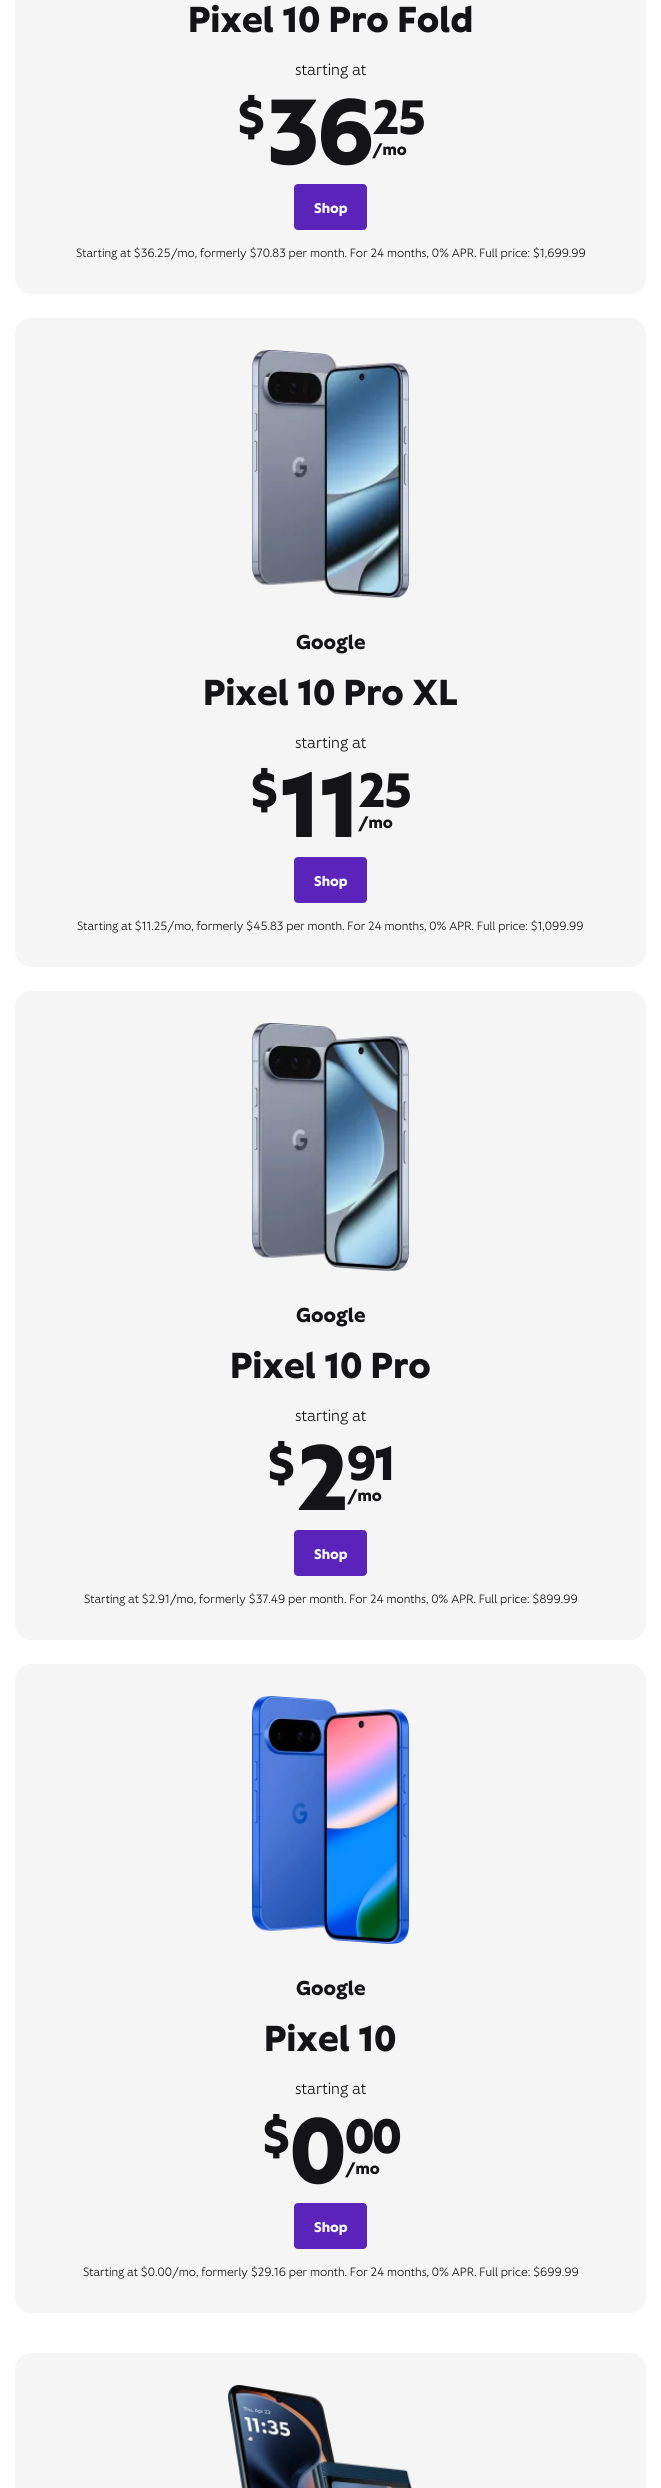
#include <cairo/cairo.h>
#include <math.h>
#include <stddef.h>

static cairo_t *cr;

static void use_color(int r, int g, int b) {
  cairo_set_source_rgb(cr, r / 255.0, g / 255.0, b / 255.0);
}

static void text(double x, double y, const char *s, const char *family, double size, int italic, int bold, int r, int g, int b) {
  cairo_select_font_face(cr, family, italic ? CAIRO_FONT_SLANT_ITALIC : CAIRO_FONT_SLANT_NORMAL,
    bold ? CAIRO_FONT_WEIGHT_BOLD : CAIRO_FONT_WEIGHT_NORMAL);
  cairo_set_font_size(cr, size);
  use_color(r, g, b);
  cairo_move_to(cr, x, y);
  cairo_show_text(cr, s);
}

static void spaced_text(double x, double y, const char *s, double letter, double word) {
  cairo_move_to(cr, x, y);
  while (*s) {
    char ch[5] = {0};
    int n = 0;
    do ch[n++] = *s++; while ((*s & 0xC0) == 0x80);
    cairo_show_text(cr, ch);
    cairo_rel_move_to(cr, letter + word * (*ch == ' '), 0);
  }
}

static void round_rect(double x, double y, double w, double h, double r) {
  cairo_new_sub_path(cr);
  cairo_arc(cr, x + w - r, y + h - r, r, 0, M_PI / 2);
  cairo_arc(cr, x + r, y + h - r, r, M_PI / 2, M_PI);
  cairo_arc(cr, x + r, y + r, r, M_PI, 1.5 * M_PI);
  cairo_arc(cr, x + w - r, y + r, r, 1.5 * M_PI, 2 * M_PI);
  cairo_close_path(cr);
}

static void picture(const char *path, double x, double y, double w, double h) {
  cairo_surface_t *image = cairo_image_surface_create_from_png(path);
  cairo_save(cr);
  cairo_set_source_surface(cr, image, x, y);
  cairo_rectangle(cr, x, y, w, h);
  cairo_fill(cr);
  cairo_restore(cr);
  cairo_surface_destroy(image);
}

static void draw(void) {
  use_color(255, 255, 255);
  cairo_paint(cr);
  use_color(245, 245, 245);
  round_rect(15, -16, 631, 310, 16);
  cairo_fill(cr);
  use_color(90, 35, 185);
  round_rect(294, 184, 73, 46, 4);
  cairo_fill(cr);
  use_color(245, 245, 245);
  round_rect(15, 318, 631, 649, 16);
  cairo_fill(cr);
  picture("img_01.png", 252, 350, 157, 248);
  use_color(90, 35, 185);
  round_rect(294, 857, 73, 46, 4);
  cairo_fill(cr);
  use_color(245, 245, 245);
  round_rect(15, 991, 631, 649, 16);
  cairo_fill(cr);
  picture("img_02.png", 252, 1023, 157, 248);
  use_color(90, 35, 185);
  round_rect(294, 1530, 73, 46, 4);
  cairo_fill(cr);
  use_color(245, 245, 245);
  round_rect(15, 1664, 631, 649, 16);
  cairo_fill(cr);
  picture("img_03.png", 252, 1696, 157, 248);
  use_color(90, 35, 185);
  round_rect(294, 2203, 73, 46, 4);
  cairo_fill(cr);
  use_color(245, 245, 245);
  round_rect(15, 2353, 631, 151, 16);
  cairo_fill(cr);
  picture("img_04.png", 228, 2385, 184, 103);
  text(188, 32, "Pixel 10 Pro Fold", "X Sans", 36, 0, 1, 20, 20, 23);
  text(295, 75, "starting at", "X Sans Light", 16, 0, 0, 20, 20, 23);
  text(237, 134, "$", "X Sans", 48, 0, 1, 20, 20, 23);
  cairo_set_font_size(cr, 92);
  spaced_text(266, 164, "36", -2, 0);
  cairo_set_font_size(cr, 48);
  spaced_text(372, 134, "25", -2, 0);
  text(372, 155, "/mo", "X Sans", 16, 0, 1, 20, 20, 23);
  text(314, 213, "Shop", "X Sans", 14, 0, 1, 246, 246, 249);
  text(76, 257, "Starting at $36.25/mo, formerly $70.83 per month. For 24 months, 0% APR. Full price: $1,699.99", "X Sans Light", 12, 0, 0, 20, 20, 23);
  text(296, 649, "Google", "X Sans", 20, 0, 1, 20, 20, 23);
  text(203, 705, "Pixel 10 Pro XL", "X Sans", 36, 0, 1, 20, 20, 23);
  text(295, 748, "starting at", "X Sans Light", 16, 0, 0, 20, 20, 23);
  text(250, 807, "$", "X Sans", 48, 0, 1, 20, 20, 23);
  cairo_set_font_size(cr, 92);
  spaced_text(279, 837, "11", -2, 0);
  cairo_set_font_size(cr, 48);
  spaced_text(358, 807, "25", -2, 0);
  text(358, 828, "/mo", "X Sans", 16, 0, 1, 20, 20, 23);
  text(314, 886, "Shop", "X Sans", 14, 0, 1, 246, 246, 249);
  text(77, 930, "Starting at $11.25/mo, formerly $45.83 per month. For 24 months, 0% APR. Full price: $1,099.99", "X Sans Light", 12, 0, 0, 20, 20, 23);
  text(296, 1322, "Google", "X Sans", 20, 0, 1, 20, 20, 23);
  text(230, 1378, "Pixel 10 Pro", "X Sans", 36, 0, 1, 20, 20, 23);
  text(295, 1421, "starting at", "X Sans Light", 16, 0, 0, 20, 20, 23);
  text(267, 1480, "$", "X Sans", 48, 0, 1, 20, 20, 23);
  cairo_set_font_size(cr, 92);
  spaced_text(296, 1510, "2", -2, 0);
  cairo_set_font_size(cr, 48);
  spaced_text(347, 1480, "91", -2, 0);
  text(347, 1501, "/mo", "X Sans", 16, 0, 1, 20, 20, 23);
  text(314, 1559, "Shop", "X Sans", 14, 0, 1, 246, 246, 249);
  text(84, 1603, "Starting at $2.91/mo, formerly $37.49 per month. For 24 months, 0% APR. Full price: $899.99", "X Sans Light", 12, 0, 0, 20, 20, 23);
  text(296, 1995, "Google", "X Sans", 20, 0, 1, 20, 20, 23);
  text(264, 2051, "Pixel 10", "X Sans", 36, 0, 1, 20, 20, 23);
  text(295, 2094, "starting at", "X Sans Light", 16, 0, 0, 20, 20, 23);
  text(262, 2153, "$", "X Sans", 48, 0, 1, 20, 20, 23);
  cairo_set_font_size(cr, 92);
  spaced_text(290, 2183, "0", -2, 0);
  cairo_set_font_size(cr, 48);
  spaced_text(345, 2153, "00", -2, 0);
  text(345, 2174, "/mo", "X Sans", 16, 0, 1, 20, 20, 23);
  text(314, 2232, "Shop", "X Sans", 14, 0, 1, 246, 246, 249);
  text(83, 2276, "Starting at $0.00/mo, formerly $29.16 per month. For 24 months, 0% APR. Full price: $699.99", "X Sans Light", 12, 0, 0, 20, 20, 23);
}

int main(void) {
  cairo_surface_t *surface = cairo_image_surface_create(CAIRO_FORMAT_RGB24, 661, 2488);
  cr = cairo_create(surface);
  cairo_font_options_t *options = cairo_font_options_create();
  cairo_font_options_set_hint_metrics(options, CAIRO_HINT_METRICS_OFF);
  cairo_font_options_set_hint_style(options, CAIRO_HINT_STYLE_NONE);
  cairo_set_font_options(cr, options);
  cairo_set_miter_limit(cr, 4);
  draw();
  cairo_surface_write_to_png(surface, "out.png");
  cairo_font_options_destroy(options);
  cairo_destroy(cr);
  cairo_surface_destroy(surface);
  return 0;
}
